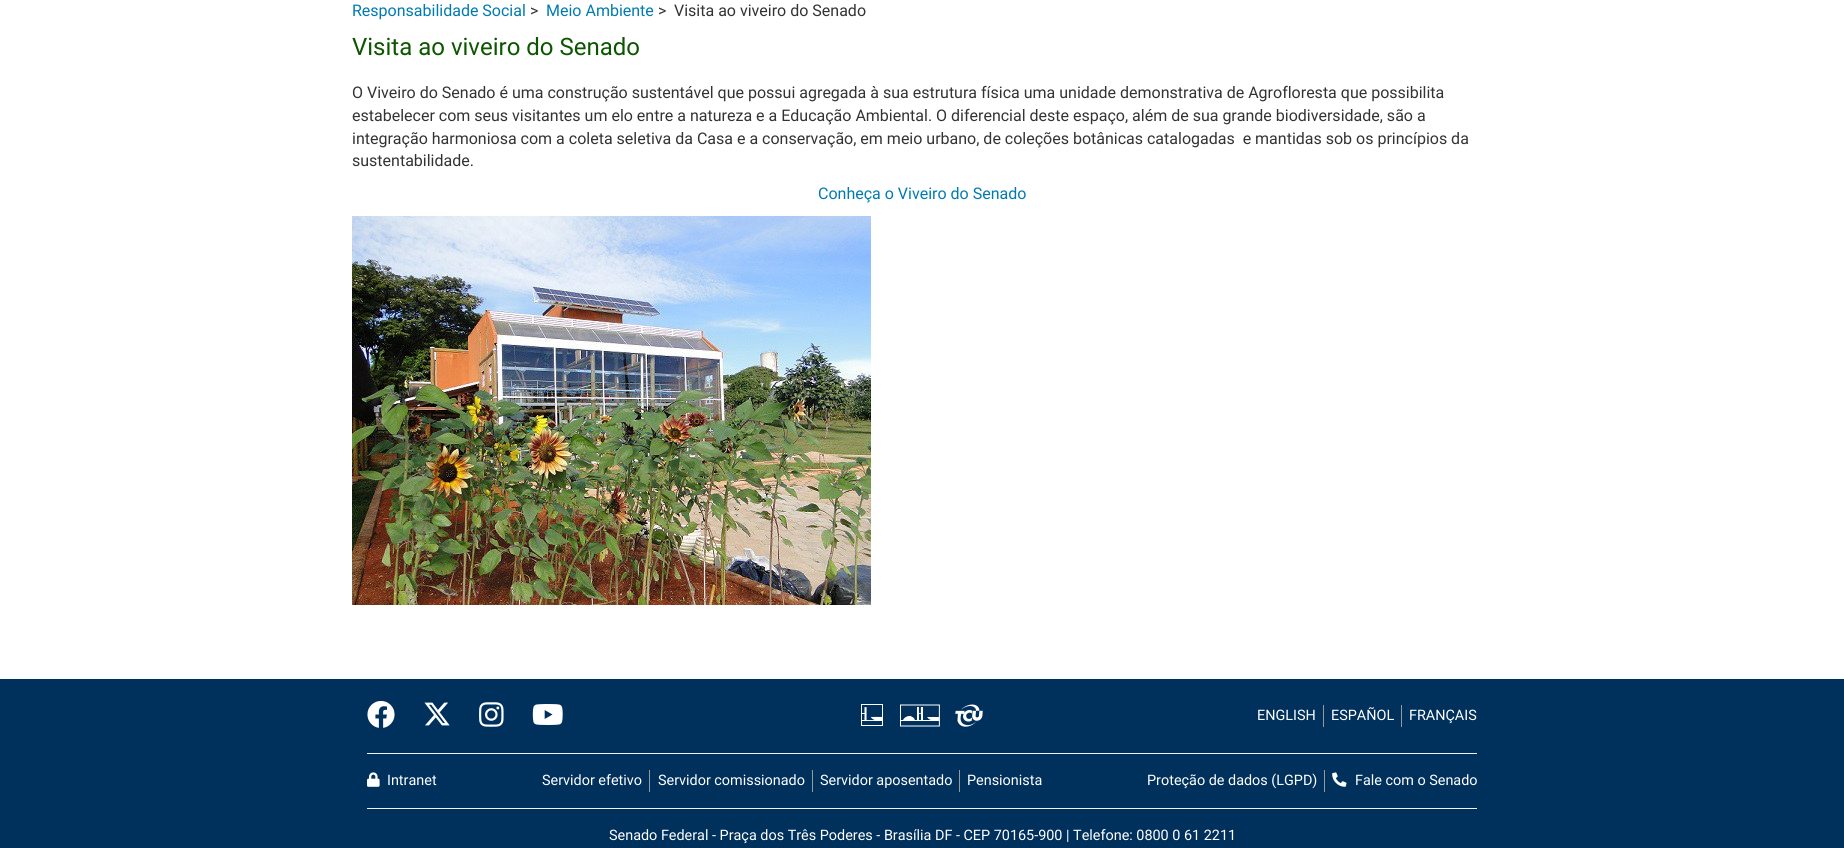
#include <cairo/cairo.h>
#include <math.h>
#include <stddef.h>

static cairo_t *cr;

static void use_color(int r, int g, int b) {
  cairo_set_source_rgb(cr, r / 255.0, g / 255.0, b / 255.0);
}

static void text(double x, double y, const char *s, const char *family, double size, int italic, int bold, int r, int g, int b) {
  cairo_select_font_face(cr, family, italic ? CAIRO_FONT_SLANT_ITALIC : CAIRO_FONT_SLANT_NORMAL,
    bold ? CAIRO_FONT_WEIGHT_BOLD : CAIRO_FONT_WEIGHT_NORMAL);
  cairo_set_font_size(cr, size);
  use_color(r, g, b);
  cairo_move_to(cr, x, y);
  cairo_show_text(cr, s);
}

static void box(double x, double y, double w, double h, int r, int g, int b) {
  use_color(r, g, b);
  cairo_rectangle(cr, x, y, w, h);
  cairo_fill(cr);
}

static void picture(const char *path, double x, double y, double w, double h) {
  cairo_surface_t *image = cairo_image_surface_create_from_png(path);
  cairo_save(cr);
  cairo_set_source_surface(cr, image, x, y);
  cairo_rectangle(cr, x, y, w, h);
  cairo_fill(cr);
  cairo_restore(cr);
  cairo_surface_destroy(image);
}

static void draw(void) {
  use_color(255, 255, 255);
  cairo_paint(cr);
  picture("img_01.png", 352, 216, 519, 389);
  box(0, 679, 1844, 169, 0, 48, 92);
  picture("img_02.png", 367, 701, 28, 27);
  picture("img_03.png", 424, 702, 26, 24);
  picture("img_04.png", 479, 702, 25, 25);
  picture("img_05.png", 532, 704, 31, 21);
  picture("img_06.png", 861, 704, 22, 22);
  picture("img_07.png", 900, 704, 40, 23);
  picture("img_08.png", 955, 704, 28, 23);
  box(1323, 705, 1, 22, 153, 153, 153);
  box(1401, 705, 1, 22, 153, 153, 153);
  box(367, 753, 1110, 1, 241, 241, 241);
  picture("img_09.png", 367, 772, 13, 15);
  box(649, 770, 1, 22, 153, 153, 153);
  box(812, 770, 1, 22, 153, 153, 153);
  box(959, 770, 1, 22, 153, 153, 153);
  box(1324, 770, 1, 22, 153, 153, 153);
  picture("img_10.png", 1332, 772, 15, 15);
  box(367, 808, 1110, 1, 241, 241, 241);
  text(352, 16, "Responsabilidade Social", "Roboto", 16, 0, 0, 0, 123, 177);
  text(530, 16, ">", "Roboto", 16, 0, 0, 51, 51, 51);
  text(546, 16, "Meio Ambiente", "Roboto", 16, 0, 0, 0, 123, 177);
  text(658, 16, ">", "Roboto", 16, 0, 0, 51, 51, 51);
  text(674, 16, "Visita ao viveiro do Senado", "Roboto", 16, 0, 0, 51, 51, 51);
  text(352, 55, "Visita ao viveiro do Senado", "Roboto", 24, 0, 0, 12, 86, 0);
  text(352, 98, "O Viveiro do Senado é uma construção sustentável que possui agregada à sua estrutura física uma unidade demonstrativa de Agrofloresta que possibilita", "Roboto", 16, 0, 0, 51, 51, 51);
  text(352, 121, "estabelecer com seus visitantes um elo entre a natureza e a Educação Ambiental. O diferencial deste espaço, além de sua grande biodiversidade, são a", "Roboto", 16, 0, 0, 51, 51, 51);
  text(352, 144, "integração harmoniosa com a coleta seletiva da Casa e a conservação, em meio urbano, de coleções botânicas catalogadas  e mantidas sob os princípios da", "Roboto", 16, 0, 0, 51, 51, 51);
  text(352, 166, "sustentabilidade.", "Roboto", 16, 0, 0, 51, 51, 51);
  text(818, 199, "Conheça o Viveiro do Senado", "Roboto", 16, 0, 0, 0, 123, 177);
  text(1257, 720, "ENGLISH", "Roboto", 14.4, 0, 0, 255, 255, 255);
  text(1331, 720, "ESPAÑOL", "Roboto", 14.4, 0, 0, 255, 255, 255);
  text(1409, 720, "FRANÇAIS", "Roboto", 14.4, 0, 0, 255, 255, 255);
  text(387, 785, "Intranet", "Roboto", 14.4, 0, 0, 255, 255, 255);
  text(542, 785, "Servidor efetivo", "Roboto", 14.4, 0, 0, 255, 255, 255);
  text(658, 785, "Servidor comissionado", "Roboto", 14.4, 0, 0, 255, 255, 255);
  text(820, 785, "Servidor aposentado", "Roboto", 14.4, 0, 0, 255, 255, 255);
  text(967, 785, "Pensionista", "Roboto", 14.4, 0, 0, 255, 255, 255);
  text(1147, 785, "Proteção de dados (LGPD)", "Roboto", 14.4, 0, 0, 255, 255, 255);
  text(1355, 785, "Fale com o Senado", "Roboto", 14.4, 0, 0, 255, 255, 255);
  text(609, 840, "Senado Federal - Praça dos Três Poderes - Brasília DF - CEP 70165-900 | Telefone: 0800 0 61 2211", "Roboto", 14.4, 0, 0, 255, 255, 255);
}

int main(void) {
  cairo_surface_t *surface = cairo_image_surface_create(CAIRO_FORMAT_RGB24, 1844, 848);
  cr = cairo_create(surface);
  cairo_font_options_t *options = cairo_font_options_create();
  cairo_font_options_set_hint_metrics(options, CAIRO_HINT_METRICS_OFF);
  cairo_font_options_set_hint_style(options, CAIRO_HINT_STYLE_NONE);
  cairo_set_font_options(cr, options);
  cairo_set_miter_limit(cr, 4);
  draw();
  cairo_surface_write_to_png(surface, "out.png");
  cairo_font_options_destroy(options);
  cairo_destroy(cr);
  cairo_surface_destroy(surface);
  return 0;
}
